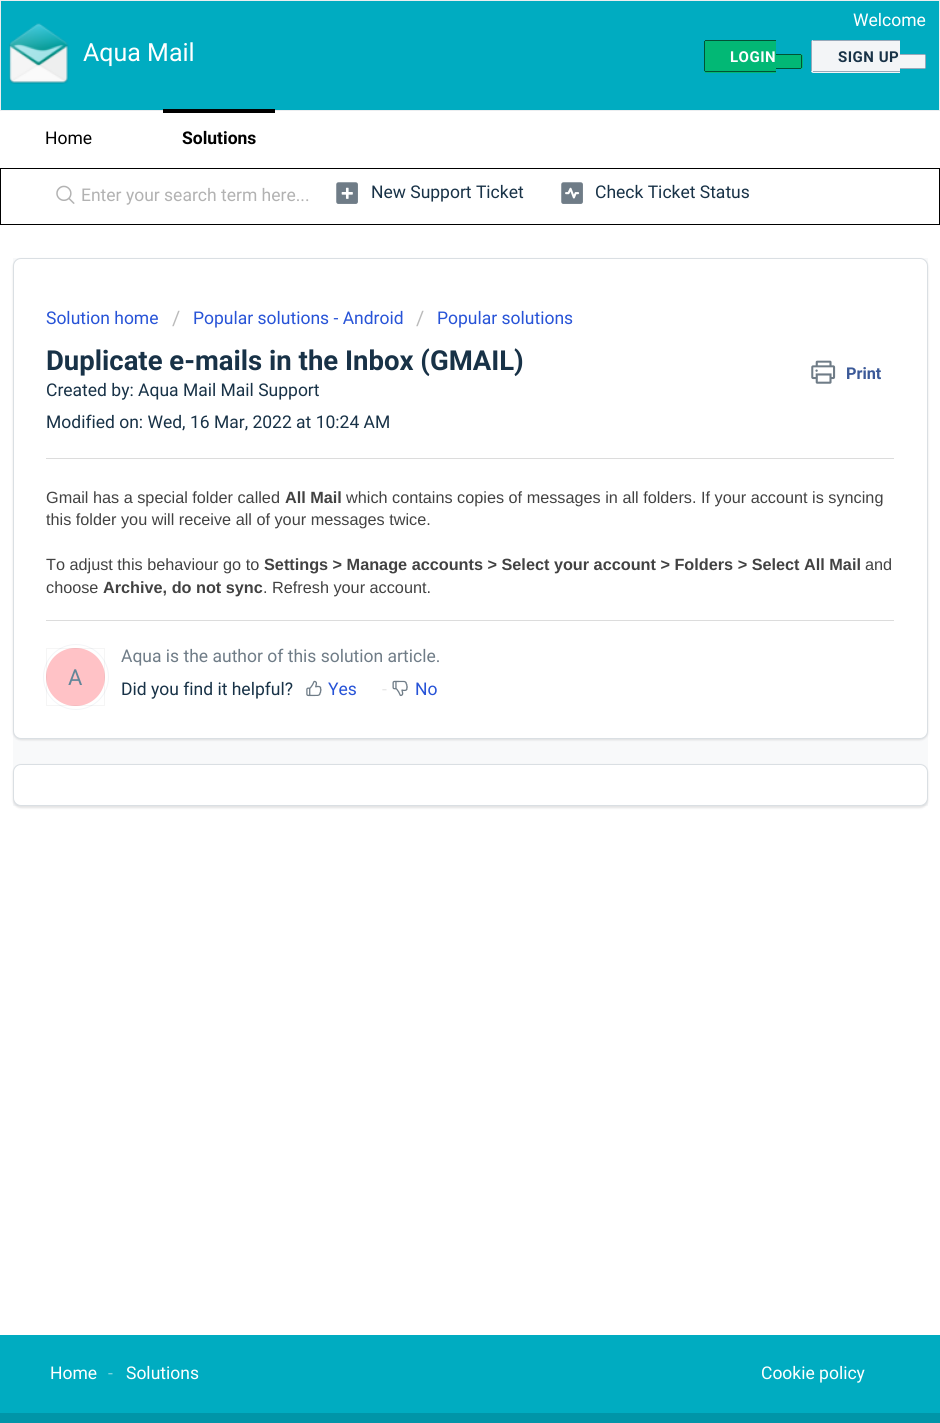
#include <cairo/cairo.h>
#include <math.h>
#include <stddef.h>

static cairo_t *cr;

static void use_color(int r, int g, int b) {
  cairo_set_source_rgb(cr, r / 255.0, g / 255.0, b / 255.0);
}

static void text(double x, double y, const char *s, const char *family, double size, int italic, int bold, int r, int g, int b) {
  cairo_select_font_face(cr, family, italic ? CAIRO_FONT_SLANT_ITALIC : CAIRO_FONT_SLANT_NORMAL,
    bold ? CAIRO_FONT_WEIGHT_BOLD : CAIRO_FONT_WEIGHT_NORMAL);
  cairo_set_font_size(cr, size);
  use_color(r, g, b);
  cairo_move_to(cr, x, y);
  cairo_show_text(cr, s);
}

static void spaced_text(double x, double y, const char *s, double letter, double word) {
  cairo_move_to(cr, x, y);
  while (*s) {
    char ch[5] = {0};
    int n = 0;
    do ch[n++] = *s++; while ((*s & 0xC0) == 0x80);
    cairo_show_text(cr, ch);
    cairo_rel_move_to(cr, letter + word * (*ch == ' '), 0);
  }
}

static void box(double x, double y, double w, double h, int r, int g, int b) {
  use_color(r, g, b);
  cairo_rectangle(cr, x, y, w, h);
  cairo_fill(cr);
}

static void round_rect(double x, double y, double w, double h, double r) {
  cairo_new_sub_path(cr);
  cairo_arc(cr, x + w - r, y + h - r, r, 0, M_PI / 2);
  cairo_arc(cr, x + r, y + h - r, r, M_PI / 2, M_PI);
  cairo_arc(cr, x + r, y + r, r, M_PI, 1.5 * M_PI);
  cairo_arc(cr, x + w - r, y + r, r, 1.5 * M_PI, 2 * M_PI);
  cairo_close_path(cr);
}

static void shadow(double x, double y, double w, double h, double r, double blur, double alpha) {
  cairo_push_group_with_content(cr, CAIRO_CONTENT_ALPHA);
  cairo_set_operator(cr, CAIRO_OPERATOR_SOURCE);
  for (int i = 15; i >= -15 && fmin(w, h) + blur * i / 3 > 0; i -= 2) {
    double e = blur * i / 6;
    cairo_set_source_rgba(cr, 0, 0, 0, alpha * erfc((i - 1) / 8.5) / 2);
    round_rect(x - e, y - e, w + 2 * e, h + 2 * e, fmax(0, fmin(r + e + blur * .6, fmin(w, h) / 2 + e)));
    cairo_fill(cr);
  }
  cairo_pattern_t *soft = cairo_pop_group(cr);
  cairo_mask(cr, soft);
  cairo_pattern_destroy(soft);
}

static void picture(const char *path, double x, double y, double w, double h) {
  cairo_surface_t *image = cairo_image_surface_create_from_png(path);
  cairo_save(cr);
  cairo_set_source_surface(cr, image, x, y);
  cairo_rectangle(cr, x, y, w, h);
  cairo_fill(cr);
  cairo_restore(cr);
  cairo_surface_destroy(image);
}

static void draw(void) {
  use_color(255, 255, 255);
  cairo_paint(cr);
  use_color(0, 172, 193);
  cairo_rectangle(cr, 0.5, 0.5, 939, 110);
  cairo_fill_preserve(cr);
  use_color(235, 238, 240);
  cairo_set_line_width(cr, 1);
  cairo_stroke(cr);
  picture("img_01.png", 9, 23, 60, 61);
  use_color(2, 184, 117);
  cairo_new_path(cr);
  cairo_move_to(cr, 706.5, 40);
  cairo_line_to(cr, 776, 40);
  cairo_line_to(cr, 776, 73);
  cairo_line_to(cr, 706.5, 73);
  cairo_curve_to(cr, 705, 73, 704, 72, 704, 70.5);
  cairo_line_to(cr, 704, 42.5);
  cairo_curve_to(cr, 704, 41, 705, 40, 706.5, 40);
  cairo_close_path(cr);
  cairo_fill(cr);
  box(705, 40, 71, 1, 1, 83, 53);
  box(705, 71, 71, 1, 1, 83, 53);
  box(704, 41, 1, 30, 1, 83, 53);
  use_color(2, 184, 117);
  cairo_new_path(cr);
  cairo_move_to(cr, 776, 54);
  cairo_line_to(cr, 800.5, 54);
  cairo_curve_to(cr, 802, 54, 803, 55, 803, 56.5);
  cairo_line_to(cr, 803, 66.5);
  cairo_curve_to(cr, 803, 68, 802, 69, 800.5, 69);
  cairo_line_to(cr, 776, 69);
  cairo_close_path(cr);
  cairo_fill(cr);
  box(776, 54, 25, 1, 1, 83, 53);
  box(801, 55, 1, 13, 1, 83, 53);
  box(776, 68, 25, 1, 1, 83, 53);
  use_color(243, 245, 247);
  cairo_new_path(cr);
  cairo_move_to(cr, 813.5, 40);
  cairo_line_to(cr, 900, 40);
  cairo_line_to(cr, 900, 73);
  cairo_line_to(cr, 813.5, 73);
  cairo_curve_to(cr, 812, 73, 811, 72, 811, 70.5);
  cairo_line_to(cr, 811, 42.5);
  cairo_curve_to(cr, 811, 41, 812, 40, 813.5, 40);
  cairo_close_path(cr);
  cairo_fill(cr);
  box(813, 40, 87, 1, 151, 169, 186);
  box(813, 71, 87, 1, 151, 169, 186);
  box(811, 41, 1, 30, 151, 169, 186);
  use_color(243, 245, 247);
  cairo_new_path(cr);
  cairo_move_to(cr, 900, 54);
  cairo_line_to(cr, 923.5, 54);
  cairo_curve_to(cr, 925, 54, 926, 55, 926, 56.5);
  cairo_line_to(cr, 926, 66.5);
  cairo_curve_to(cr, 926, 68, 925, 69, 923.5, 69);
  cairo_line_to(cr, 900, 69);
  cairo_close_path(cr);
  cairo_fill(cr);
  box(900, 54, 25, 1, 151, 169, 186);
  box(925, 55, 1, 13, 151, 169, 186);
  box(900, 68, 25, 1, 151, 169, 186);
  box(163, 109, 112, 4, 0, 0, 0);
  cairo_rectangle(cr, 0.5, 168.5, 939, 56);
  cairo_stroke(cr);
  picture("img_02.png", 56, 185, 19, 19);
  picture("img_03.png", 336, 182, 22, 22);
  picture("img_04.png", 561, 182, 22, 22);
  box(13, 258, 915, 548, 248, 249, 250);
  use_color(63, 63, 68);
  shadow(13, 259, 915, 481, 8, 1, 0.15);
  use_color(255, 255, 255);
  round_rect(13.5, 258.5, 914, 480, 7.5);
  cairo_fill_preserve(cr);
  use_color(218, 223, 227);
  cairo_stroke(cr);
  picture("img_05.png", 811, 360, 25, 24);
  box(46, 458, 848, 1, 220, 220, 220);
  box(46, 620, 848, 1, 220, 220, 220);
  cairo_arc(cr, 76, 677, 32.5, 0, 2 * M_PI);
  use_color(243, 245, 247);
  cairo_stroke(cr);
  use_color(255, 194, 198);
  round_rect(46, 648, 59, 58, 29);
  cairo_fill(cr);
  cairo_rectangle(cr, 46.5, 648.5, 58, 57);
  cairo_set_source_rgba(cr, 0, 0, 0, 0.04);
  cairo_stroke(cr);
  picture("img_06.png", 306, 680, 16, 17);
  picture("img_07.png", 392, 680, 16, 17);
  use_color(63, 63, 68);
  shadow(13, 765, 915, 43, 8, 1, 0.15);
  use_color(255, 255, 255);
  round_rect(13.5, 764.5, 914, 41, 7.5);
  cairo_fill_preserve(cr);
  use_color(218, 223, 227);
  cairo_stroke(cr);
  box(0, 1335, 940, 78, 0, 172, 193);
  box(0, 1413, 940, 10, 0, 149, 168);
  text(83, 61, "Aqua Mail", "Roboto", 25, 0, 0, 255, 255, 255);
  text(853, 26, "Welcome", "Roboto", 17.5, 0, 0, 255, 255, 255);
  cairo_select_font_face(cr, "Roboto", CAIRO_FONT_SLANT_NORMAL, CAIRO_FONT_WEIGHT_BOLD);
  cairo_set_font_size(cr, 15);
  spaced_text(730, 62, "LOGIN", 0.5, 0);
  use_color(24, 50, 71);
  spaced_text(838, 62, "SIGN UP", 0.5, 0);
  text(45, 144, "Home", "Roboto", 17.5, 0, 0, 0, 0, 0);
  text(182, 144, "Solutions", "Roboto", 17.5, 0, 1, 0, 0, 0);
  text(81, 201, "Enter your search term here...", "Roboto", 17.5, 0, 0, 178, 178, 178);
  text(371, 198, "New Support Ticket", "Roboto", 17.5, 0, 0, 24, 50, 71);
  text(595, 198, "Check Ticket Status", "Roboto", 17.5, 0, 0, 24, 50, 71);
  text(46, 324, "Solution home", "Roboto", 17.5, 0, 0, 39, 83, 215);
  text(172, 325, "/", "Roboto", 20, 0, 0, 187, 187, 187);
  text(193, 324, "Popular solutions - Android", "Roboto", 17.5, 0, 0, 39, 83, 215);
  text(416, 325, "/", "Roboto", 20, 0, 0, 187, 187, 187);
  text(437, 324, "Popular solutions", "Roboto", 17.5, 0, 0, 39, 83, 215);
  text(46, 370, "Duplicate e-mails in the Inbox (GMAIL)", "Roboto", 27.5, 0, 1, 24, 50, 71);
  text(846, 379, "Print", "Roboto", 16.25, 0, 1, 59, 89, 152);
  text(46, 396, "Created by: Aqua Mail Mail Support", "Roboto", 17.5, 0, 0, 24, 50, 71);
  text(46, 428, "Modified on: Wed, 16 Mar, 2022 at 10:24 AM", "Roboto", 17.5, 0, 0, 24, 50, 71);
  text(46, 503, "Gmail has a special folder called", "Liberation Sans", 16.25, 0, 0, 66, 66, 66);
  text(285, 503, "All Mail", "Liberation Sans", 16.25, 0, 1, 66, 66, 66);
  text(346, 503, "which contains copies of messages in all folders. If your account is syncing", "Liberation Sans", 16.25, 0, 0, 66, 66, 66);
  text(46, 525, "this folder you will receive all of your messages twice.", "Liberation Sans", 16.25, 0, 0, 66, 66, 66);
  text(46, 570, "To adjust this behaviour go to", "Liberation Sans", 16.25, 0, 0, 66, 66, 66);
  text(264, 570, "Settings > Manage accounts > Select your account > Folders > Select All Mail", "Liberation Sans", 16.25, 0, 1, 66, 66, 66);
  text(865, 570, "and", "Liberation Sans", 16.25, 0, 0, 66, 66, 66);
  text(46, 593, "choose", "Liberation Sans", 16.25, 0, 0, 66, 66, 66);
  text(103, 593, "Archive, do not sync", "Liberation Sans", 16.25, 0, 1, 66, 66, 66);
  text(263, 593, ". Refresh your account.", "Liberation Sans", 16.25, 0, 0, 66, 66, 66);
  text(121, 662, "Aqua is the author of this solution article.", "Roboto", 17.5, 0, 0, 111, 124, 135);
  text(68, 685, "A", "Roboto", 22, 0, 0, 99, 134, 153);
  text(121, 695, "Did you find it helpful?", "Roboto", 17.5, 0, 0, 24, 50, 71);
  text(328, 695, "Yes", "Roboto", 17.5, 0, 0, 39, 83, 215);
  text(382, 695, "-", "Roboto", 17.5, 0, 0, 229, 229, 229);
  text(415, 695, "No", "Roboto", 17.5, 0, 0, 39, 83, 215);
  text(50, 1379, "Home", "Roboto", 17.5, 0, 0, 255, 255, 255);
  text(108, 1379, "-", "Roboto", 17.5, 0, 0, 128, 214, 224);
  text(126, 1379, "Solutions", "Roboto", 17.5, 0, 0, 255, 255, 255);
  text(761, 1379, "Cookie policy", "Roboto", 17.5, 0, 0, 255, 255, 255);
}

int main(void) {
  cairo_surface_t *surface = cairo_image_surface_create(CAIRO_FORMAT_RGB24, 940, 1423);
  cr = cairo_create(surface);
  cairo_font_options_t *options = cairo_font_options_create();
  cairo_font_options_set_hint_metrics(options, CAIRO_HINT_METRICS_OFF);
  cairo_font_options_set_hint_style(options, CAIRO_HINT_STYLE_NONE);
  cairo_set_font_options(cr, options);
  cairo_set_miter_limit(cr, 4);
  draw();
  cairo_surface_write_to_png(surface, "out.png");
  cairo_font_options_destroy(options);
  cairo_destroy(cr);
  cairo_surface_destroy(surface);
  return 0;
}
